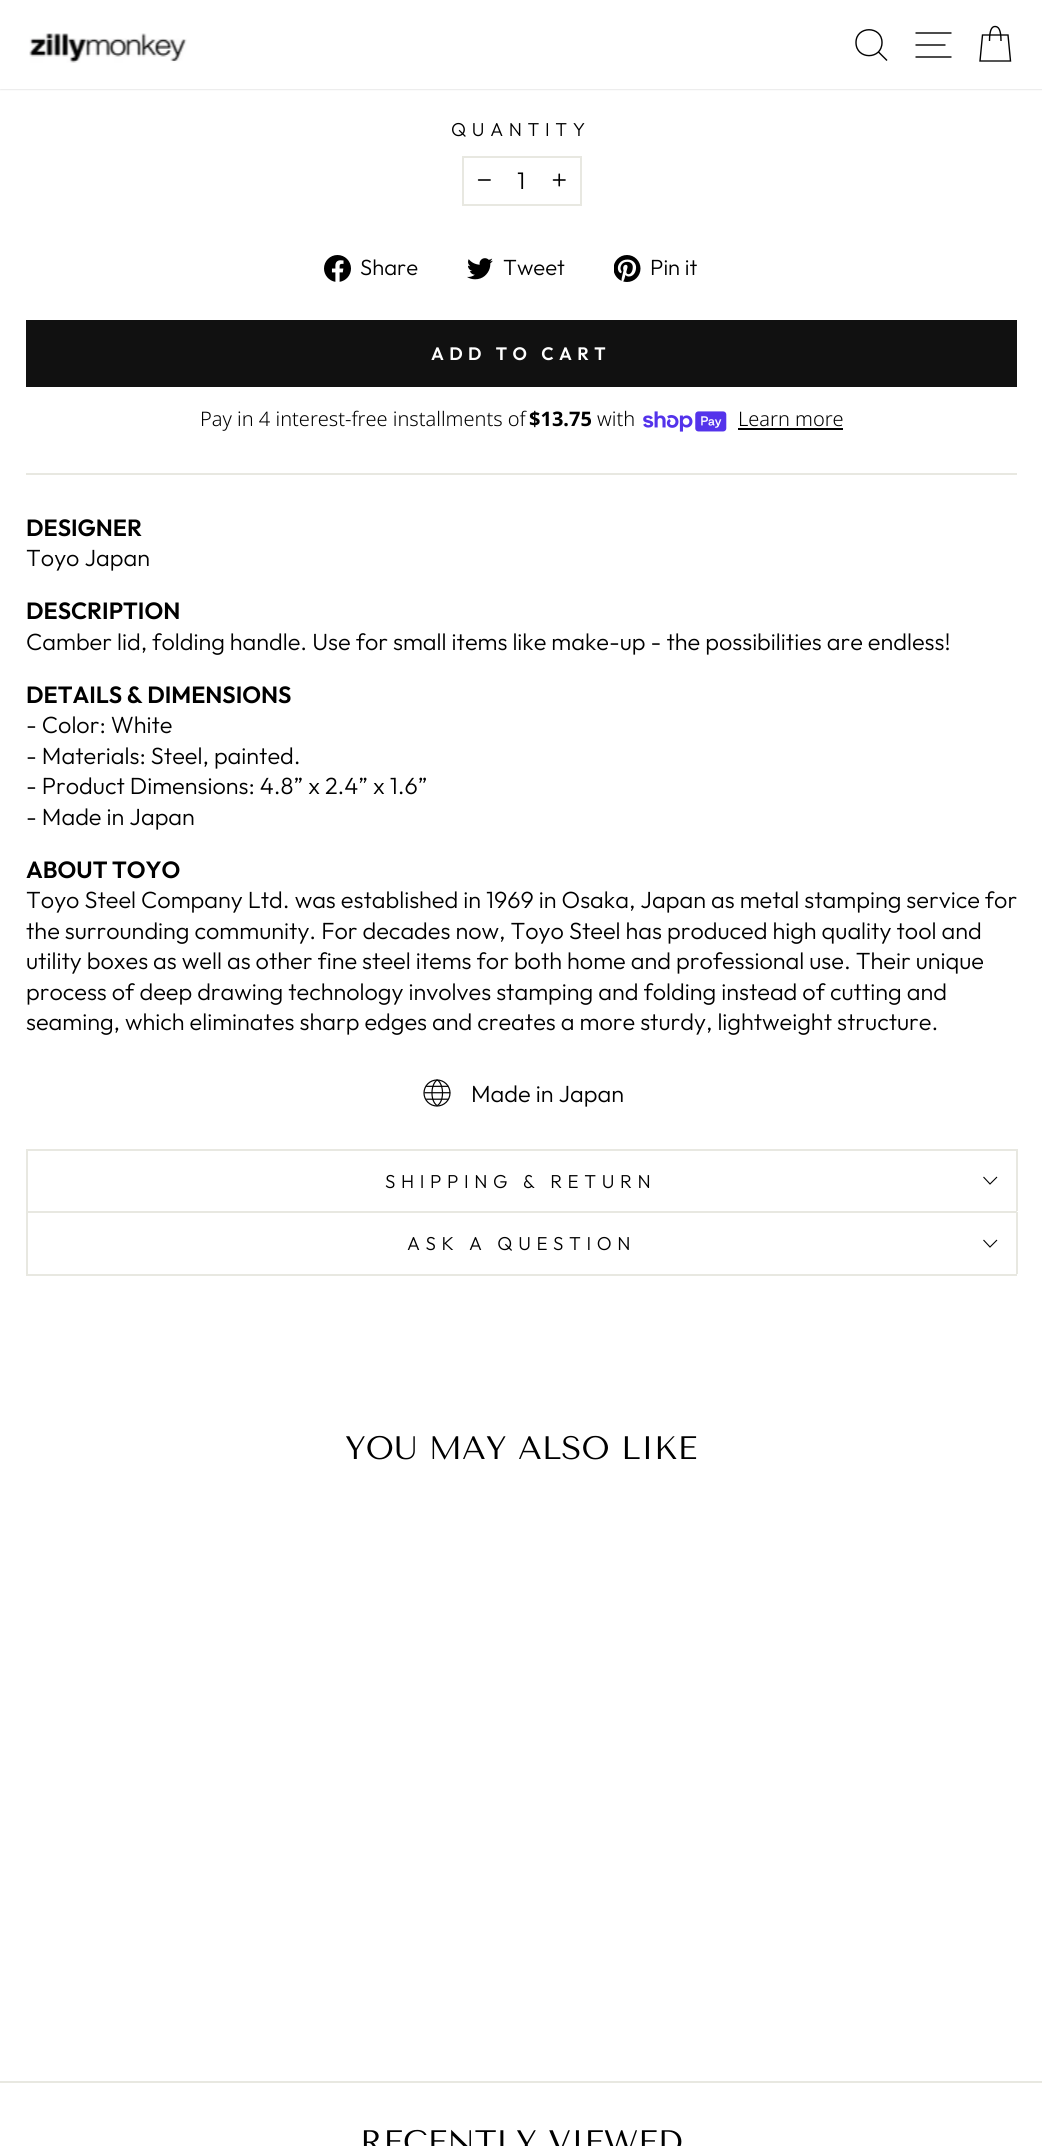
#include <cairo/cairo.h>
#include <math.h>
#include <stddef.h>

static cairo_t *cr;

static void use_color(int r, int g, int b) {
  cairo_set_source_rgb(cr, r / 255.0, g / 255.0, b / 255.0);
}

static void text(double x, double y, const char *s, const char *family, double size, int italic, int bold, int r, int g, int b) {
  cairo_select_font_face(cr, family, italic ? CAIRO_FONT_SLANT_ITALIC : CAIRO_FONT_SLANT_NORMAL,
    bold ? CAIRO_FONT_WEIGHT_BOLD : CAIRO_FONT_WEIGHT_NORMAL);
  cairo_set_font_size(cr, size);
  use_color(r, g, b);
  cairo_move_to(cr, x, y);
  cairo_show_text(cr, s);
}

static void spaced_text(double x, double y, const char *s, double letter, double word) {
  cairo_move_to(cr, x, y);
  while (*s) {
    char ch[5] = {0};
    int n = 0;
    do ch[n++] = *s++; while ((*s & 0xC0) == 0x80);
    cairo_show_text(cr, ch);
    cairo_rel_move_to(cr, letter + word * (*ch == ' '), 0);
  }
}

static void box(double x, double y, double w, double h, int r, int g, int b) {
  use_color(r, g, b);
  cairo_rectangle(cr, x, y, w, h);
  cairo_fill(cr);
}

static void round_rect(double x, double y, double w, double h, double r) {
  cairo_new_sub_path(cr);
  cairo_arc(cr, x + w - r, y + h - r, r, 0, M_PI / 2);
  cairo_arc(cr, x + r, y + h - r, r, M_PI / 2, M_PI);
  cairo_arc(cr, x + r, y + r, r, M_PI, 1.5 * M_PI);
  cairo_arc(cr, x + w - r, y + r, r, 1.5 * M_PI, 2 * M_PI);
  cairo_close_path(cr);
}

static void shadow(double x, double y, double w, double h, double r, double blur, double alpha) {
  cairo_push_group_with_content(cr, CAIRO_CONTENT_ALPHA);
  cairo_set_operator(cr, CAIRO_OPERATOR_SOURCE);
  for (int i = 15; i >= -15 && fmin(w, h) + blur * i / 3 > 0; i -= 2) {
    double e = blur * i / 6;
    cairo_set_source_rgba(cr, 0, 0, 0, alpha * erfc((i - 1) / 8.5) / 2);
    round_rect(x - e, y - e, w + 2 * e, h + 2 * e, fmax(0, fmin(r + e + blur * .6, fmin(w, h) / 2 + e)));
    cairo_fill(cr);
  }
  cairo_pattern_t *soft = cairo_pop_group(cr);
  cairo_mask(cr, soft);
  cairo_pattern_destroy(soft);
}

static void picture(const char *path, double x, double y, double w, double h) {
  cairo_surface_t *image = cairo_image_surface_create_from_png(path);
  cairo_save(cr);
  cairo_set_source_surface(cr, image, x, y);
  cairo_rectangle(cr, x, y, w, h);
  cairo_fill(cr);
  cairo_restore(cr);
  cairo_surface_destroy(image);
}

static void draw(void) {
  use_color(255, 255, 255);
  cairo_paint(cr);
  use_color(0, 0, 0);
  shadow(0, 0, 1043, 89, 0, 1, 0.2);
  box(0, 0, 1042, 89, 255, 255, 255);
  picture("img_01.png", 29, 33, 158, 30);
  cairo_new_path(cr);
  cairo_move_to(cr, 882, 42.5);
  cairo_curve_to(cr, 882, 60, 856, 60, 856, 42.5);
  cairo_curve_to(cr, 856, 25.5, 882, 25.5, 882, 42.5);
  cairo_close_path(cr);
  cairo_move_to(cr, 887, 60.5);
  cairo_line_to(cr, 878.5, 52);
  use_color(0, 0, 0);
  cairo_set_line_width(cr, 1.4);
  cairo_stroke(cr);
  cairo_new_path(cr);
  cairo_move_to(cr, 915.5, 33);
  cairo_line_to(cr, 951.5, 33);
  cairo_move_to(cr, 915.5, 45);
  cairo_line_to(cr, 945.5, 45);
  cairo_move_to(cr, 915.5, 57);
  cairo_line_to(cr, 951.5, 57);
  cairo_stroke(cr);
  cairo_new_path(cr);
  cairo_move_to(cr, 989.5, 41);
  cairo_curve_to(cr, 989.5, 29.5, 992, 26.5, 995, 26.5);
  cairo_curve_to(cr, 998.5, 26.5, 1001, 29.5, 1001, 41);
  cairo_move_to(cr, 982.5, 35);
  cairo_line_to(cr, 1008, 35);
  cairo_line_to(cr, 1010.5, 61);
  cairo_line_to(cr, 980, 61);
  cairo_close_path(cr);
  cairo_stroke(cr);
  cairo_rectangle(cr, 463, 157, 118, 48);
  use_color(232, 232, 225);
  cairo_set_line_width(cr, 2);
  cairo_stroke(cr);
  picture("img_02.png", 477, 179, 14, 2);
  picture("img_03.png", 552, 173, 14, 14);
  picture("img_04.png", 324, 255, 27, 27);
  picture("img_05.png", 467, 258, 26, 22);
  picture("img_06.png", 614, 255, 27, 27);
  box(26, 320, 991, 67, 17, 17, 17);
  picture("img_07.png", 643, 411, 84, 21);
  box(738, 428, 105, 2, 0, 0, 0);
  box(26, 473, 991, 2, 232, 232, 225);
  picture("img_08.png", 423, 1079, 28, 28);
  box(26, 1211, 991, 2, 232, 232, 225);
  box(26, 1149, 991, 2, 232, 232, 225);
  box(1016, 1149, 2, 62, 232, 232, 225);
  box(26, 1149, 2, 62, 232, 232, 225);
  cairo_new_path(cr);
  cairo_move_to(cr, 983.5, 1177);
  cairo_line_to(cr, 990, 1184);
  cairo_line_to(cr, 997, 1177);
  use_color(0, 0, 0);
  cairo_set_line_width(cr, 1.1);
  cairo_stroke(cr);
  box(26, 1274, 991, 2, 232, 232, 225);
  box(1016, 1212, 2, 62, 232, 232, 225);
  box(26, 1212, 2, 62, 232, 232, 225);
  cairo_new_path(cr);
  cairo_move_to(cr, 983.5, 1240);
  cairo_line_to(cr, 990, 1247);
  cairo_line_to(cr, 997, 1240);
  use_color(0, 0, 0);
  cairo_stroke(cr);
  box(0, 2081, 1042, 2, 232, 232, 225);
  cairo_select_font_face(cr, "Outfit Light", CAIRO_FONT_SLANT_NORMAL, CAIRO_FONT_WEIGHT_NORMAL);
  cairo_set_font_size(cr, 18.75);
  use_color(0, 0, 0);
  spaced_text(451, 136, "QUANTITY", 5.6, 0);
  text(517, 189, "1", "Outfit Light", 24, 0, 0, 0, 0, 0);
  text(360, 275, "Share", "Outfit Light", 22, 0, 0, 0, 0, 0);
  text(503, 275, "Tweet", "Outfit Light", 22, 0, 0, 0, 0, 0);
  text(650, 275, "Pin it", "Outfit Light", 22, 0, 0, 0, 0, 0);
  cairo_select_font_face(cr, "Outfit SemiBold", CAIRO_FONT_SLANT_NORMAL, CAIRO_FONT_WEIGHT_NORMAL);
  cairo_set_font_size(cr, 18);
  use_color(255, 255, 255);
  spaced_text(431, 360, "ADD TO CART", 5.4, 0);
  text(200, 426, "Pay in 4 interest-free installments of", "Noto Sans Light", 20, 0, 0, 0, 0, 0);
  text(529, 426, "$13.75", "Noto Sans", 20, 0, 1, 0, 0, 0);
  text(597, 426, "with", "Noto Sans Light", 20, 0, 0, 0, 0, 0);
  text(738, 426, "Learn more", "Noto Sans Light", 20, 0, 0, 0, 0, 0);
  text(26, 536, "DESIGNER", "Outfit SemiBold", 23.45, 0, 0, 0, 0, 0);
  text(26, 566, "Toyo Japan", "Outfit Light", 23.45, 0, 0, 0, 0, 0);
  text(26, 619, "DESCRIPTION", "Outfit SemiBold", 23.45, 0, 0, 0, 0, 0);
  text(26, 650, "Camber lid, folding handle. Use for small items like make-up - the possibilities are endless!", "Outfit Light", 23.45, 0, 0, 0, 0, 0);
  text(26, 703, "DETAILS & DIMENSIONS", "Outfit SemiBold", 23.45, 0, 0, 0, 0, 0);
  text(26, 733, "- Color: White", "Outfit Light", 23.45, 0, 0, 0, 0, 0);
  text(26, 764, "- Materials: Steel, painted.", "Outfit Light", 23.45, 0, 0, 0, 0, 0);
  text(26, 794, "- Product Dimensions: 4.8” x 2.4” x 1.6”", "Outfit Light", 23.45, 0, 0, 0, 0, 0);
  text(26, 825, "- Made in Japan", "Outfit Light", 23.45, 0, 0, 0, 0, 0);
  text(26, 878, "ABOUT TOYO", "Outfit SemiBold", 23.45, 0, 0, 0, 0, 0);
  text(26, 908, "Toyo Steel Company Ltd. was established in 1969 in Osaka, Japan as metal stamping service for", "Outfit Light", 23.45, 0, 0, 0, 0, 0);
  text(26, 939, "the surrounding community. For decades now, Toyo Steel has produced high quality tool and", "Outfit Light", 23.45, 0, 0, 0, 0, 0);
  text(26, 969, "utility boxes as well as other fine steel items for both home and professional use. Their unique", "Outfit Light", 23.45, 0, 0, 0, 0, 0);
  text(26, 1000, "process of deep drawing technology involves stamping and folding instead of cutting and", "Outfit Light", 23.45, 0, 0, 0, 0, 0);
  text(26, 1030, "seaming, which eliminates sharp edges and creates a more sturdy, lightweight structure.", "Outfit Light", 23.45, 0, 0, 0, 0, 0);
  text(471, 1102, "Made in Japan", "Outfit Light", 23.45, 0, 0, 0, 0, 0);
  cairo_set_font_size(cr, 18.75);
  spaced_text(385, 1188, "SHIPPING & RETURN", 5.6, 0);
  spaced_text(407, 1250, "ASK A QUESTION", 5.6, 0);
  text(345, 1459, "YOU MAY ALSO LIKE", "Tenor Sans", 32.5, 0, 0, 0, 0, 0);
  text(360, 2153, "RECENTLY VIEWED", "Tenor Sans", 32.5, 0, 0, 0, 0, 0);
}

int main(void) {
  cairo_surface_t *surface = cairo_image_surface_create(CAIRO_FORMAT_RGB24, 1042, 2146);
  cr = cairo_create(surface);
  cairo_font_options_t *options = cairo_font_options_create();
  cairo_font_options_set_hint_metrics(options, CAIRO_HINT_METRICS_OFF);
  cairo_font_options_set_hint_style(options, CAIRO_HINT_STYLE_NONE);
  cairo_set_font_options(cr, options);
  cairo_set_miter_limit(cr, 4);
  draw();
  cairo_surface_write_to_png(surface, "out.png");
  cairo_font_options_destroy(options);
  cairo_destroy(cr);
  cairo_surface_destroy(surface);
  return 0;
}
